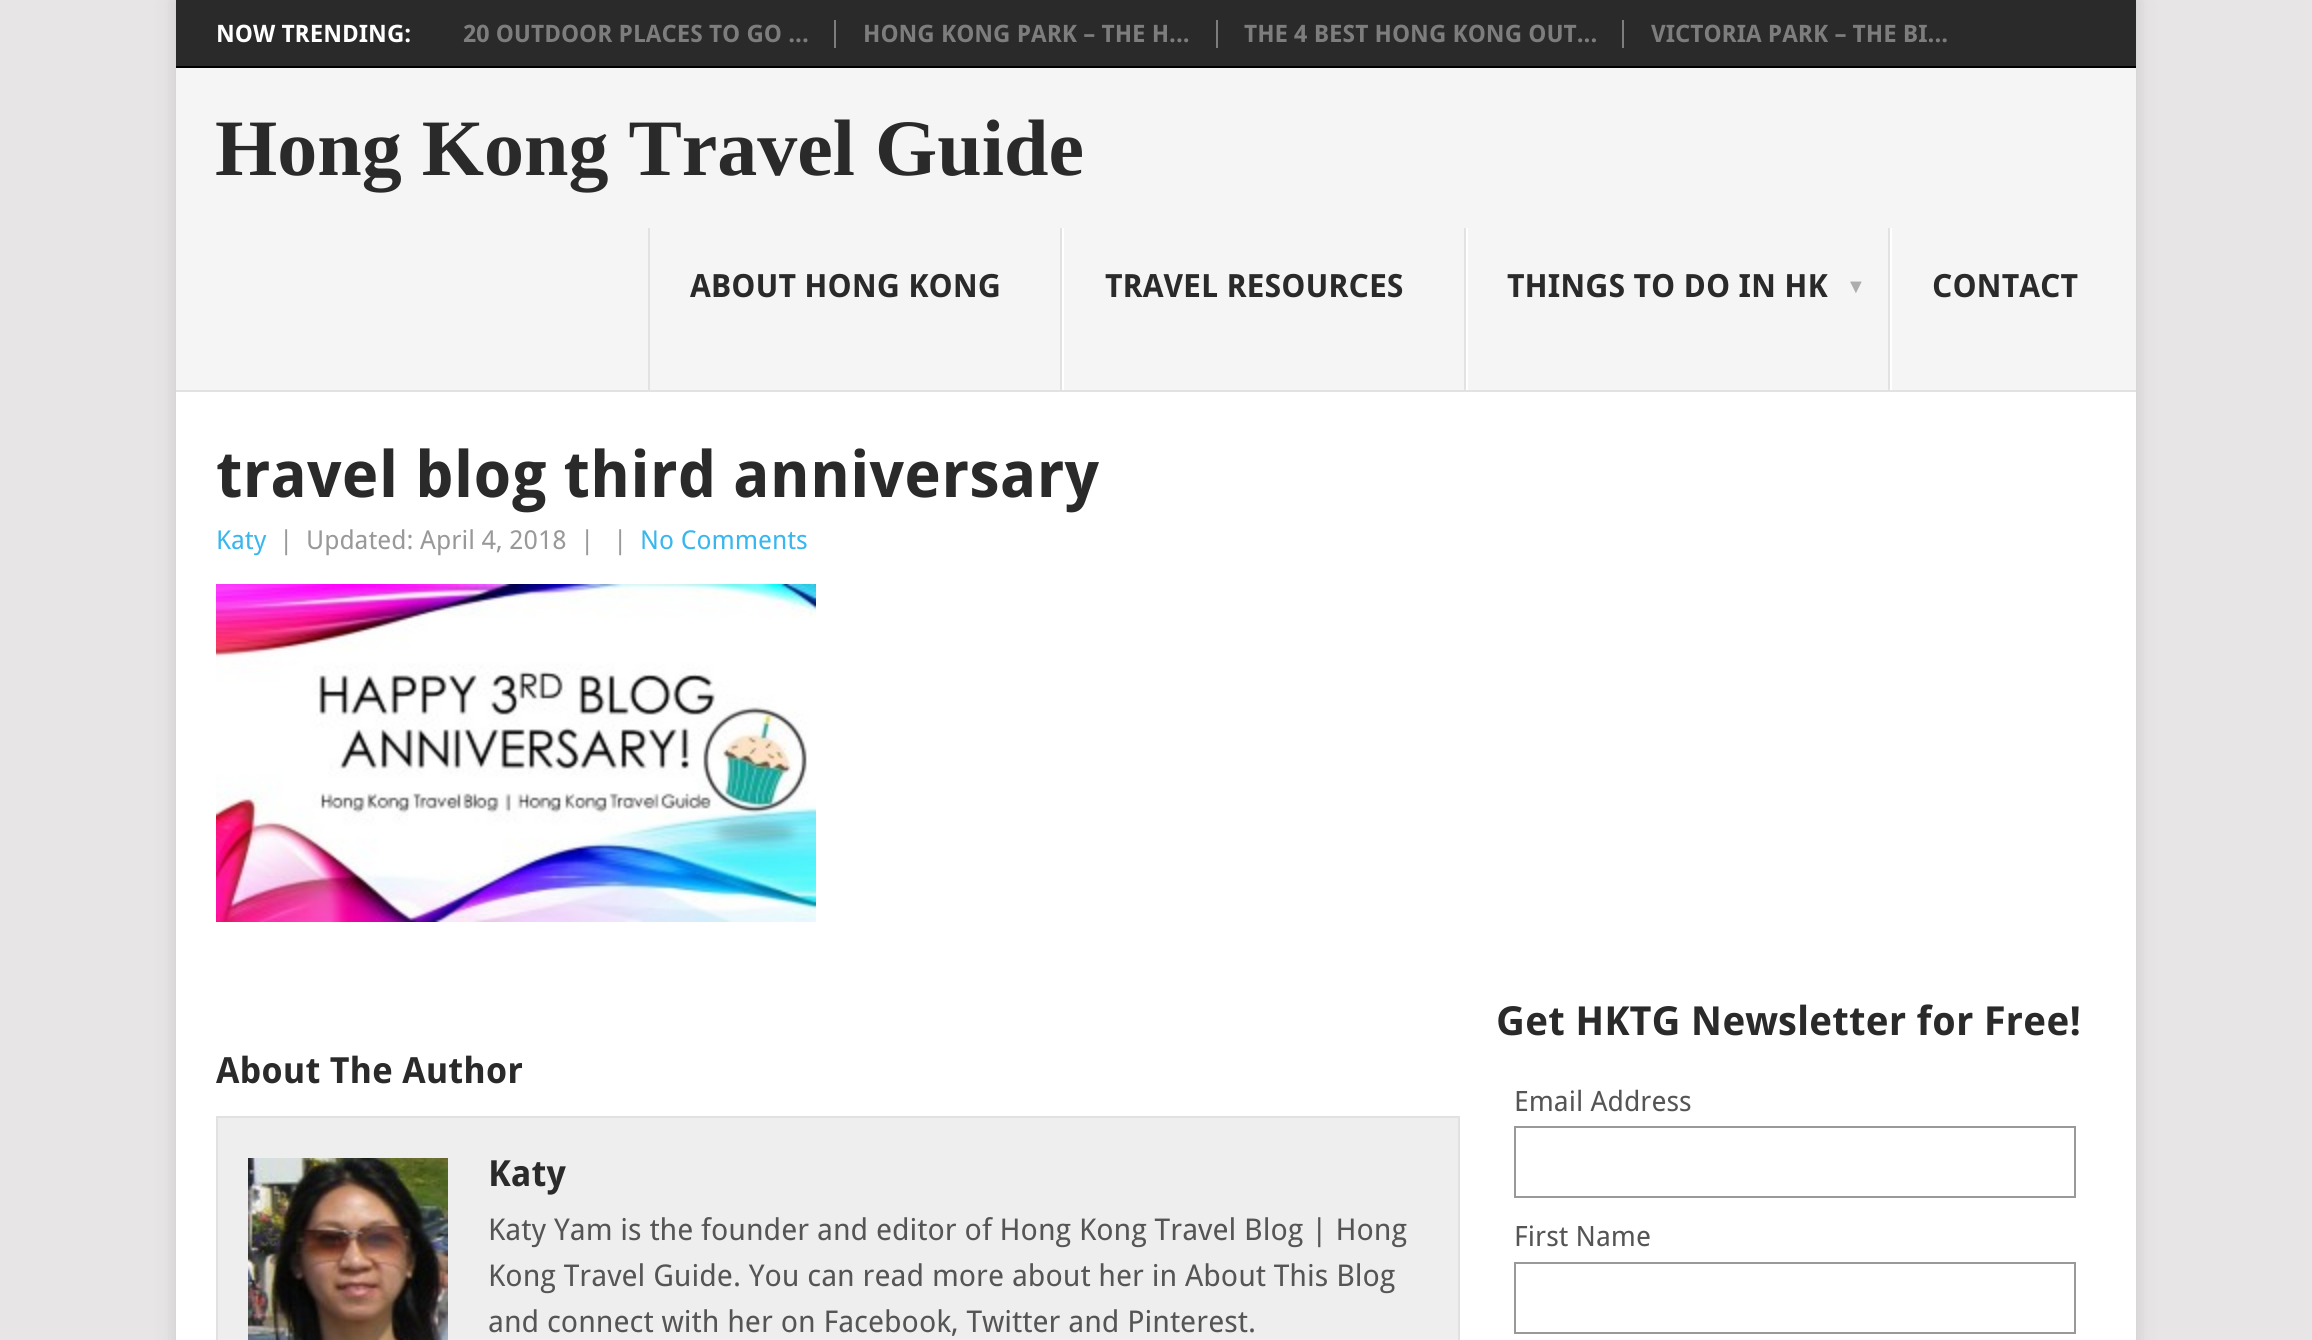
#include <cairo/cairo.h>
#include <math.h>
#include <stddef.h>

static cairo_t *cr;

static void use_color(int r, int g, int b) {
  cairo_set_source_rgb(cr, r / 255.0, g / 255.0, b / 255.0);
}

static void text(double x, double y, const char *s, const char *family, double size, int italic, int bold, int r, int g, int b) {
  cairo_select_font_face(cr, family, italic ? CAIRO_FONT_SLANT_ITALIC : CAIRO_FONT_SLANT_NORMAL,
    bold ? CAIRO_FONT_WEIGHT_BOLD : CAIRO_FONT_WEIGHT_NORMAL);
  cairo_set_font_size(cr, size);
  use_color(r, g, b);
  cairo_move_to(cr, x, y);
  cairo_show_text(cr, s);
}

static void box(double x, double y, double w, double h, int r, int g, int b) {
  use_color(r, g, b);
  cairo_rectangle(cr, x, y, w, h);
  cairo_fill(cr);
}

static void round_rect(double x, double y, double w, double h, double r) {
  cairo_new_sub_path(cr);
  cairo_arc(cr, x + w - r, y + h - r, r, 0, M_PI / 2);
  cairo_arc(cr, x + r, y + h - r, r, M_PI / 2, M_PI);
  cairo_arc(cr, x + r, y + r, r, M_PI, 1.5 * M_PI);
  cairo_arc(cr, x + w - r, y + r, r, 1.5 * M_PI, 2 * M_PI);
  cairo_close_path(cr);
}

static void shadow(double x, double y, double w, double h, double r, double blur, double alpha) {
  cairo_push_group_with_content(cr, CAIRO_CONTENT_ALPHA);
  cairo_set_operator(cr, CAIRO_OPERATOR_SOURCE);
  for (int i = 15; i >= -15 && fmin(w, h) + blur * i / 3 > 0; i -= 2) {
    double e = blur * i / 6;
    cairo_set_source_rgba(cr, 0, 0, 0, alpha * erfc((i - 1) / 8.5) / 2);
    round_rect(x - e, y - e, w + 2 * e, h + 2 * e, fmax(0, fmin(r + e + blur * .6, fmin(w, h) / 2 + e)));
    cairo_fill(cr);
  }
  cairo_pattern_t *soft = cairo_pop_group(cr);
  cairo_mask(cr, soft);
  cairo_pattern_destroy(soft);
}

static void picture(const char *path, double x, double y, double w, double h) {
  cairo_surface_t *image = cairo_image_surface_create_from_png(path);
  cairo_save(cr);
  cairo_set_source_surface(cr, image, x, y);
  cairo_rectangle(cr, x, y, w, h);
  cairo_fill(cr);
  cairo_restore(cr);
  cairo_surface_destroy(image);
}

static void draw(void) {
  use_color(231, 229, 230);
  cairo_paint(cr);
  use_color(50, 50, 50);
  shadow(176, 0, 1960, 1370, 0, 10, 0.17);
  box(176, 392, 1960, 948, 255, 255, 255);
  box(176, 0, 1960, 66, 42, 42, 42);
  box(176, 66, 1960, 2, 0, 0, 0);
  box(834, 20, 2, 28, 125, 125, 125);
  box(1216, 20, 2, 28, 125, 125, 125);
  box(1622, 20, 2, 28, 125, 125, 125);
  box(176, 68, 1960, 322, 245, 245, 245);
  box(1060, 228, 2, 164, 226, 226, 226);
  box(648, 228, 2, 164, 226, 226, 226);
  box(1464, 228, 2, 164, 226, 226, 226);
  box(1062, 228, 2, 164, 255, 255, 255);
  box(1888, 228, 2, 164, 226, 226, 226);
  box(1466, 228, 2, 164, 255, 255, 255);
  box(1890, 228, 2, 164, 255, 255, 255);
  box(176, 390, 1960, 2, 226, 226, 226);
  picture("img_01.png", 216, 584, 600, 338);
  use_color(238, 238, 238);
  cairo_rectangle(cr, 217, 1117, 1242, 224);
  cairo_fill_preserve(cr);
  use_color(225, 225, 225);
  cairo_stroke(cr);
  picture("img_02.png", 248, 1158, 200, 182);
  cairo_rectangle(cr, 1515, 1127, 560, 70);
  use_color(153, 153, 153);
  cairo_stroke(cr);
  cairo_rectangle(cr, 1515, 1263, 560, 70);
  cairo_stroke(cr);
  text(216, 42, "NOW TRENDING:", "Droid Sans", 24, 0, 1, 255, 255, 255);
  text(463, 42, "20 OUTDOOR PLACES TO GO ...", "Droid Sans", 24, 0, 1, 125, 125, 125);
  text(863, 42, "HONG KONG PARK – THE H...", "Droid Sans", 24, 0, 1, 125, 125, 125);
  text(1244, 42, "THE 4 BEST HONG KONG OUT...", "Droid Sans", 24, 0, 1, 125, 125, 125);
  text(1651, 42, "VICTORIA PARK – THE BI...", "Droid Sans", 24, 0, 1, 125, 125, 125);
  text(215, 175, "Hong Kong Travel Guide", "Liberation Serif", 80, 0, 1, 42, 42, 42);
  text(690, 297, "ABOUT HONG KONG", "Droid Sans", 32, 0, 1, 42, 42, 42);
  text(1105, 297, "TRAVEL RESOURCES", "Droid Sans", 32, 0, 1, 42, 42, 42);
  text(1507, 297, "THINGS TO DO IN HK", "Droid Sans", 32, 0, 1, 42, 42, 42);
  text(1846, 293, "▼", "Liberation Sans", 20, 0, 1, 173, 173, 173);
  text(1932, 297, "CONTACT", "Droid Sans", 32, 0, 1, 42, 42, 42);
  text(216, 497, "travel blog third anniversary", "Droid Sans", 64, 0, 1, 42, 42, 42);
  text(216, 549, "Katy", "Droid Sans", 26, 0, 0, 56, 183, 238);
  text(279, 549, "|", "Droid Sans", 26, 0, 0, 153, 153, 153);
  text(306, 549, "Updated: April 4, 2018", "Droid Sans", 26, 0, 0, 153, 153, 153);
  text(580, 549, "|", "Droid Sans", 26, 0, 0, 153, 153, 153);
  text(613, 549, "|", "Droid Sans", 26, 0, 0, 153, 153, 153);
  text(640, 549, "No Comments", "Droid Sans", 26, 0, 0, 56, 183, 238);
  text(216, 1083, "About The Author", "Droid Sans", 36, 0, 1, 42, 42, 42);
  text(488, 1186, "Katy", "Droid Sans", 36, 0, 1, 42, 42, 42);
  text(488, 1240, "Katy Yam is the founder and editor of Hong Kong Travel Blog | Hong", "Droid Sans", 30, 0, 0, 85, 85, 85);
  text(488, 1286, "Kong Travel Guide. You can read more about her in About This Blog", "Droid Sans", 30, 0, 0, 85, 85, 85);
  text(488, 1332, "and connect with her on Facebook, Twitter and Pinterest.", "Droid Sans", 30, 0, 0, 85, 85, 85);
  text(1496, 1035, "Get HKTG Newsletter for Free!", "Droid Sans", 40, 0, 1, 42, 42, 42);
  text(1514, 1111, "Email Address", "Droid Sans", 28, 0, 0, 85, 85, 85);
  text(1514, 1246, "First Name", "Droid Sans", 28, 0, 0, 85, 85, 85);
}

int main(void) {
  cairo_surface_t *surface = cairo_image_surface_create(CAIRO_FORMAT_RGB24, 2312, 1340);
  cr = cairo_create(surface);
  cairo_font_options_t *options = cairo_font_options_create();
  cairo_font_options_set_hint_metrics(options, CAIRO_HINT_METRICS_OFF);
  cairo_font_options_set_hint_style(options, CAIRO_HINT_STYLE_NONE);
  cairo_set_font_options(cr, options);
  cairo_set_miter_limit(cr, 4);
  draw();
  cairo_surface_write_to_png(surface, "out.png");
  cairo_font_options_destroy(options);
  cairo_destroy(cr);
  cairo_surface_destroy(surface);
  return 0;
}
